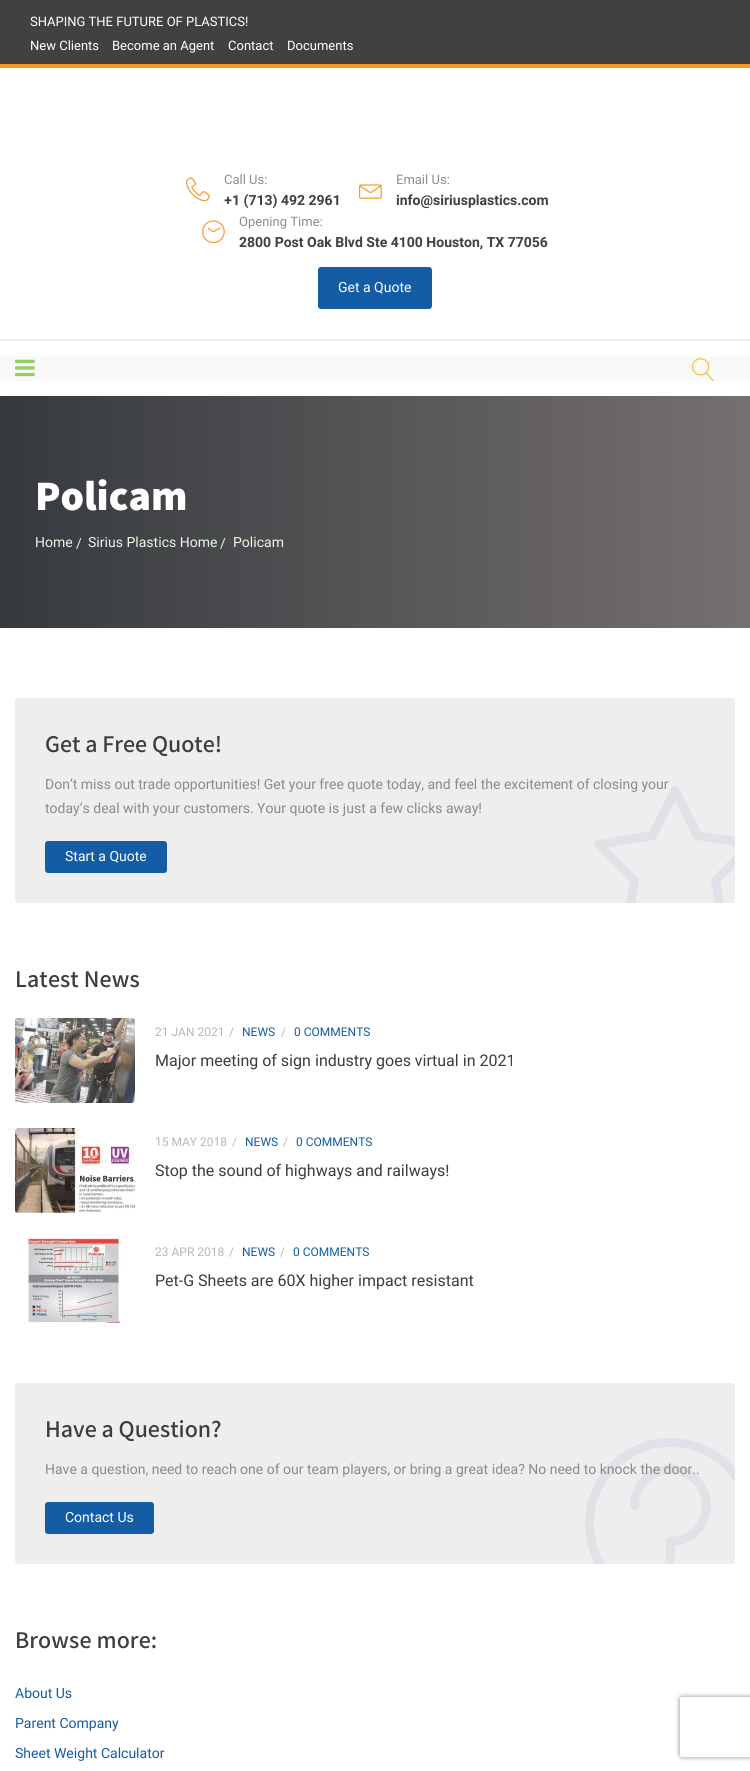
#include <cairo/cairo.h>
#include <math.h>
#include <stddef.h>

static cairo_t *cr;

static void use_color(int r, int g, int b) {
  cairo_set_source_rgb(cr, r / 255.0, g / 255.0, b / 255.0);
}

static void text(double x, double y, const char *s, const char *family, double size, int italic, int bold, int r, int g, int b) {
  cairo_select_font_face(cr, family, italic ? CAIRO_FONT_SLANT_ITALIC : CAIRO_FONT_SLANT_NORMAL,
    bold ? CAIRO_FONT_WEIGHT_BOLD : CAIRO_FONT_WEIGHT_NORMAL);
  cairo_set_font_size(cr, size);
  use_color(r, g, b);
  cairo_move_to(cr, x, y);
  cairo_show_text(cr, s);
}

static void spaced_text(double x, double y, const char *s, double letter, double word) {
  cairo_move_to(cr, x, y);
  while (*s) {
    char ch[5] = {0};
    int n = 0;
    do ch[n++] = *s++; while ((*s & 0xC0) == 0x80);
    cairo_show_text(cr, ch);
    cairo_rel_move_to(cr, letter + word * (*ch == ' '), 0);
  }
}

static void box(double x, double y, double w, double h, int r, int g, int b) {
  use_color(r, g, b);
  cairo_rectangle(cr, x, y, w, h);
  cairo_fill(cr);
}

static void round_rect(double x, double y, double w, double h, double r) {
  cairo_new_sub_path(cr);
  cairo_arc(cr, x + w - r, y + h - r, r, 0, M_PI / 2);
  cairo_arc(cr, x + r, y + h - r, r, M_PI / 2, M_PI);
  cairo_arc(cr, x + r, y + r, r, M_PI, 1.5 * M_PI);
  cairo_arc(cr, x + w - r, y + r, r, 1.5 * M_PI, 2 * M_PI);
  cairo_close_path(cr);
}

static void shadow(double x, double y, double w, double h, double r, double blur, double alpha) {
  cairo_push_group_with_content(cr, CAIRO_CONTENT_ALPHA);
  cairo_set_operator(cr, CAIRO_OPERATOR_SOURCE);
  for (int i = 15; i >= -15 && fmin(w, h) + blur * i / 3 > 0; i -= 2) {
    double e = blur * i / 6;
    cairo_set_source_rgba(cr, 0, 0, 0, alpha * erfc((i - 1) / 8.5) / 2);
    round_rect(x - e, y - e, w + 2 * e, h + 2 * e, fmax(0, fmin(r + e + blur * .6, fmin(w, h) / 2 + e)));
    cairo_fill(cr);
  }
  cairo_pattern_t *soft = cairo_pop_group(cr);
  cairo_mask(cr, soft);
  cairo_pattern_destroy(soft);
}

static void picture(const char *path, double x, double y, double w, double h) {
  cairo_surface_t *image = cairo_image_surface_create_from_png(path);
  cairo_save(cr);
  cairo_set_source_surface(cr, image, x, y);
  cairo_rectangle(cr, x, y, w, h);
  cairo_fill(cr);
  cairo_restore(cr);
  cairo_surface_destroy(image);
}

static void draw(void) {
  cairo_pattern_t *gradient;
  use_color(255, 255, 255);
  cairo_paint(cr);
  box(0, 0, 750, 64, 65, 65, 65);
  box(0, 64, 750, 4, 248, 152, 42);
  box(0, 339, 750, 2, 238, 238, 238);
  picture("img_01.png", 186, 177, 24, 25);
  picture("img_02.png", 359, 184, 23, 15);
  picture("img_03.png", 202, 220, 23, 24);
  use_color(20, 92, 164);
  round_rect(318, 267, 114, 42, 3);
  cairo_fill(cr);
  box(0, 356, 750, 25, 249, 249, 249);
  picture("img_04.png", 15, 359, 20, 18);
  picture("img_05.png", 692, 358, 22, 24);
  gradient = cairo_pattern_create_linear(0, 512, 750, 512);
  cairo_pattern_add_color_stop_rgba(gradient, 0, 0.208, 0.224, 0.243, 1);
  cairo_pattern_add_color_stop_rgba(gradient, 1, 0.463, 0.439, 0.439, 1);
  cairo_set_source(cr, gradient);
  cairo_pattern_destroy(gradient);
  cairo_rectangle(cr, 0, 396, 750, 232);
  cairo_fill(cr);
  use_color(238, 238, 238);
  round_rect(15, 698, 720, 205, 3);
  cairo_fill(cr);
  use_color(20, 92, 164);
  round_rect(45, 841, 122, 32, 3);
  cairo_fill(cr);
  picture("img_06.png", 594, 786, 141, 117);
  picture("img_07.png", 15, 1018, 120, 85);
  picture("img_08.png", 15, 1128, 120, 85);
  picture("img_09.png", 15, 1238, 112, 85);
  use_color(238, 238, 238);
  round_rect(15, 1383, 720, 181, 3);
  cairo_fill(cr);
  picture("img_10.png", 585, 1438, 150, 126);
  use_color(20, 92, 164);
  round_rect(45, 1502, 109, 32, 3);
  cairo_fill(cr);
  cairo_save(cr);
  cairo_set_fill_rule(cr, CAIRO_FILL_RULE_EVEN_ODD);
  cairo_new_path(cr);
  cairo_move_to(cr, 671, 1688);
  cairo_line_to(cr, 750, 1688);
  cairo_line_to(cr, 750, 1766);
  cairo_line_to(cr, 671, 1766);
  cairo_close_path(cr);
  cairo_move_to(cr, 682, 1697);
  cairo_line_to(cr, 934, 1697);
  cairo_curve_to(cr, 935, 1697, 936, 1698, 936, 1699);
  cairo_line_to(cr, 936, 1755);
  cairo_curve_to(cr, 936, 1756, 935, 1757, 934, 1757);
  cairo_line_to(cr, 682, 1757);
  cairo_curve_to(cr, 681, 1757, 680, 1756, 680, 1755);
  cairo_line_to(cr, 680, 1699);
  cairo_curve_to(cr, 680, 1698, 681, 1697, 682, 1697);
  cairo_close_path(cr);
  cairo_clip(cr);
  use_color(138, 138, 138);
  shadow(680, 1697, 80, 60, 2, 2.5, 1);
  cairo_restore(cr);
  text(30, 26, "SHAPING THE FUTURE OF PLASTICS!", "Heebo", 13, 0, 0, 255, 255, 255);
  text(30, 50, "New Clients", "Heebo", 13, 0, 0, 255, 255, 255);
  text(112, 50, "Become an Agent", "Heebo", 13, 0, 0, 255, 255, 255);
  text(228, 50, "Contact", "Heebo", 13, 0, 0, 255, 255, 255);
  text(287, 50, "Documents", "Heebo", 13, 0, 0, 255, 255, 255);
  text(224, 184, "Call Us:", "Heebo", 13, 0, 0, 141, 141, 141);
  text(224, 205, "+1 (713) 492 2961", "Heebo", 14, 0, 1, 65, 65, 65);
  text(396, 184, "Email Us:", "Heebo", 13, 0, 0, 141, 141, 141);
  text(396, 205, "info@siriusplastics.com", "Heebo", 14, 0, 1, 65, 65, 65);
  text(239, 226, "Opening Time:", "Heebo", 13, 0, 0, 141, 141, 141);
  text(239, 247, "2800 Post Oak Blvd Ste 4100 Houston, TX 77056", "Heebo", 14, 0, 1, 65, 65, 65);
  text(338, 292, "Get a Quote", "Heebo", 14, 0, 0, 255, 255, 255);
  text(35, 510, "Policam", "Assistant ExtraBold", 42, 0, 0, 255, 255, 255);
  text(35, 547, "Home", "Heebo", 14, 0, 0, 235, 245, 228);
  text(76, 548, "/", "Heebo", 14, 0, 0, 235, 245, 228);
  text(88, 547, "Sirius Plastics Home", "Heebo", 14, 0, 0, 235, 245, 228);
  text(220, 548, "/", "Heebo", 14, 0, 0, 235, 245, 228);
  text(233, 547, "Policam", "Heebo", 14, 0, 0, 235, 245, 228);
  text(45, 752, "Get a Free Quote!", "Assistant SemiBold", 24, 0, 0, 59, 61, 66);
  text(45, 789, "Don’t miss out trade opportunities! Get your free quote today, and feel the excitement of closing your", "Heebo", 14, 0, 0, 134, 140, 143);
  text(45, 813, "today’s deal with your customers. Your quote is just a few clicks away!", "Heebo", 14, 0, 0, 134, 140, 143);
  text(65, 861, "Start a Quote", "Heebo", 14, 0, 0, 255, 255, 255);
  cairo_select_font_face(cr, "Assistant SemiBold", CAIRO_FONT_SLANT_NORMAL, CAIRO_FONT_WEIGHT_NORMAL);
  cairo_set_font_size(cr, 24);
  use_color(59, 61, 66);
  spaced_text(15, 987, "Latest News", 0.1, 0);
  text(155, 1036, "21 JAN 2021", "Heebo", 12, 0, 0, 177, 185, 188);
  text(229, 1036, "/", "Heebo", 12, 0, 0, 177, 185, 188);
  text(242, 1036, "NEWS", "Heebo", 12, 0, 0, 20, 92, 164);
  text(281, 1036, "/", "Heebo", 12, 0, 0, 177, 185, 188);
  text(294, 1036, "0 COMMENTS", "Heebo", 12, 0, 0, 20, 92, 164);
  text(155, 1066, "Major meeting of sign industry goes virtual in 2021", "Heebo", 16, 0, 0, 59, 61, 66);
  text(155, 1146, "15 MAY 2018", "Heebo", 12, 0, 0, 177, 185, 188);
  text(232, 1146, "/", "Heebo", 12, 0, 0, 177, 185, 188);
  text(245, 1146, "NEWS", "Heebo", 12, 0, 0, 20, 92, 164);
  text(283, 1146, "/", "Heebo", 12, 0, 0, 177, 185, 188);
  text(296, 1146, "0 COMMENTS", "Heebo", 12, 0, 0, 20, 92, 164);
  text(155, 1176, "Stop the sound of highways and railways!", "Heebo", 16, 0, 0, 59, 61, 66);
  text(155, 1256, "23 APR 2018", "Heebo", 12, 0, 0, 177, 185, 188);
  text(229, 1256, "/", "Heebo", 12, 0, 0, 177, 185, 188);
  text(242, 1256, "NEWS", "Heebo", 12, 0, 0, 20, 92, 164);
  text(280, 1256, "/", "Heebo", 12, 0, 0, 177, 185, 188);
  text(293, 1256, "0 COMMENTS", "Heebo", 12, 0, 0, 20, 92, 164);
  text(155, 1286, "Pet-G Sheets are 60X higher impact resistant", "Heebo", 16, 0, 0, 59, 61, 66);
  text(45, 1437, "Have a Question?", "Assistant SemiBold", 24, 0, 0, 59, 61, 66);
  text(45, 1474, "Have a question, need to reach one of our team players, or bring a great idea? No need to knock the door..", "Heebo", 14, 0, 0, 134, 140, 143);
  text(65, 1522, "Contact Us", "Heebo", 14, 0, 0, 255, 255, 255);
  cairo_select_font_face(cr, "Assistant SemiBold", CAIRO_FONT_SLANT_NORMAL, CAIRO_FONT_WEIGHT_NORMAL);
  cairo_set_font_size(cr, 24);
  use_color(59, 61, 66);
  spaced_text(15, 1648, "Browse more:", 0.1, 0);
  text(15, 1698, "About Us", "Heebo", 14, 0, 0, 20, 92, 164);
  text(15, 1728, "Parent Company", "Heebo", 14, 0, 0, 20, 92, 164);
  text(15, 1758, "Sheet Weight Calculator", "Heebo", 14, 0, 0, 20, 92, 164);
}

int main(void) {
  cairo_surface_t *surface = cairo_image_surface_create(CAIRO_FORMAT_RGB24, 750, 1771);
  cr = cairo_create(surface);
  cairo_font_options_t *options = cairo_font_options_create();
  cairo_font_options_set_hint_metrics(options, CAIRO_HINT_METRICS_OFF);
  cairo_font_options_set_hint_style(options, CAIRO_HINT_STYLE_NONE);
  cairo_set_font_options(cr, options);
  cairo_set_miter_limit(cr, 4);
  draw();
  cairo_surface_write_to_png(surface, "out.png");
  cairo_font_options_destroy(options);
  cairo_destroy(cr);
  cairo_surface_destroy(surface);
  return 0;
}
